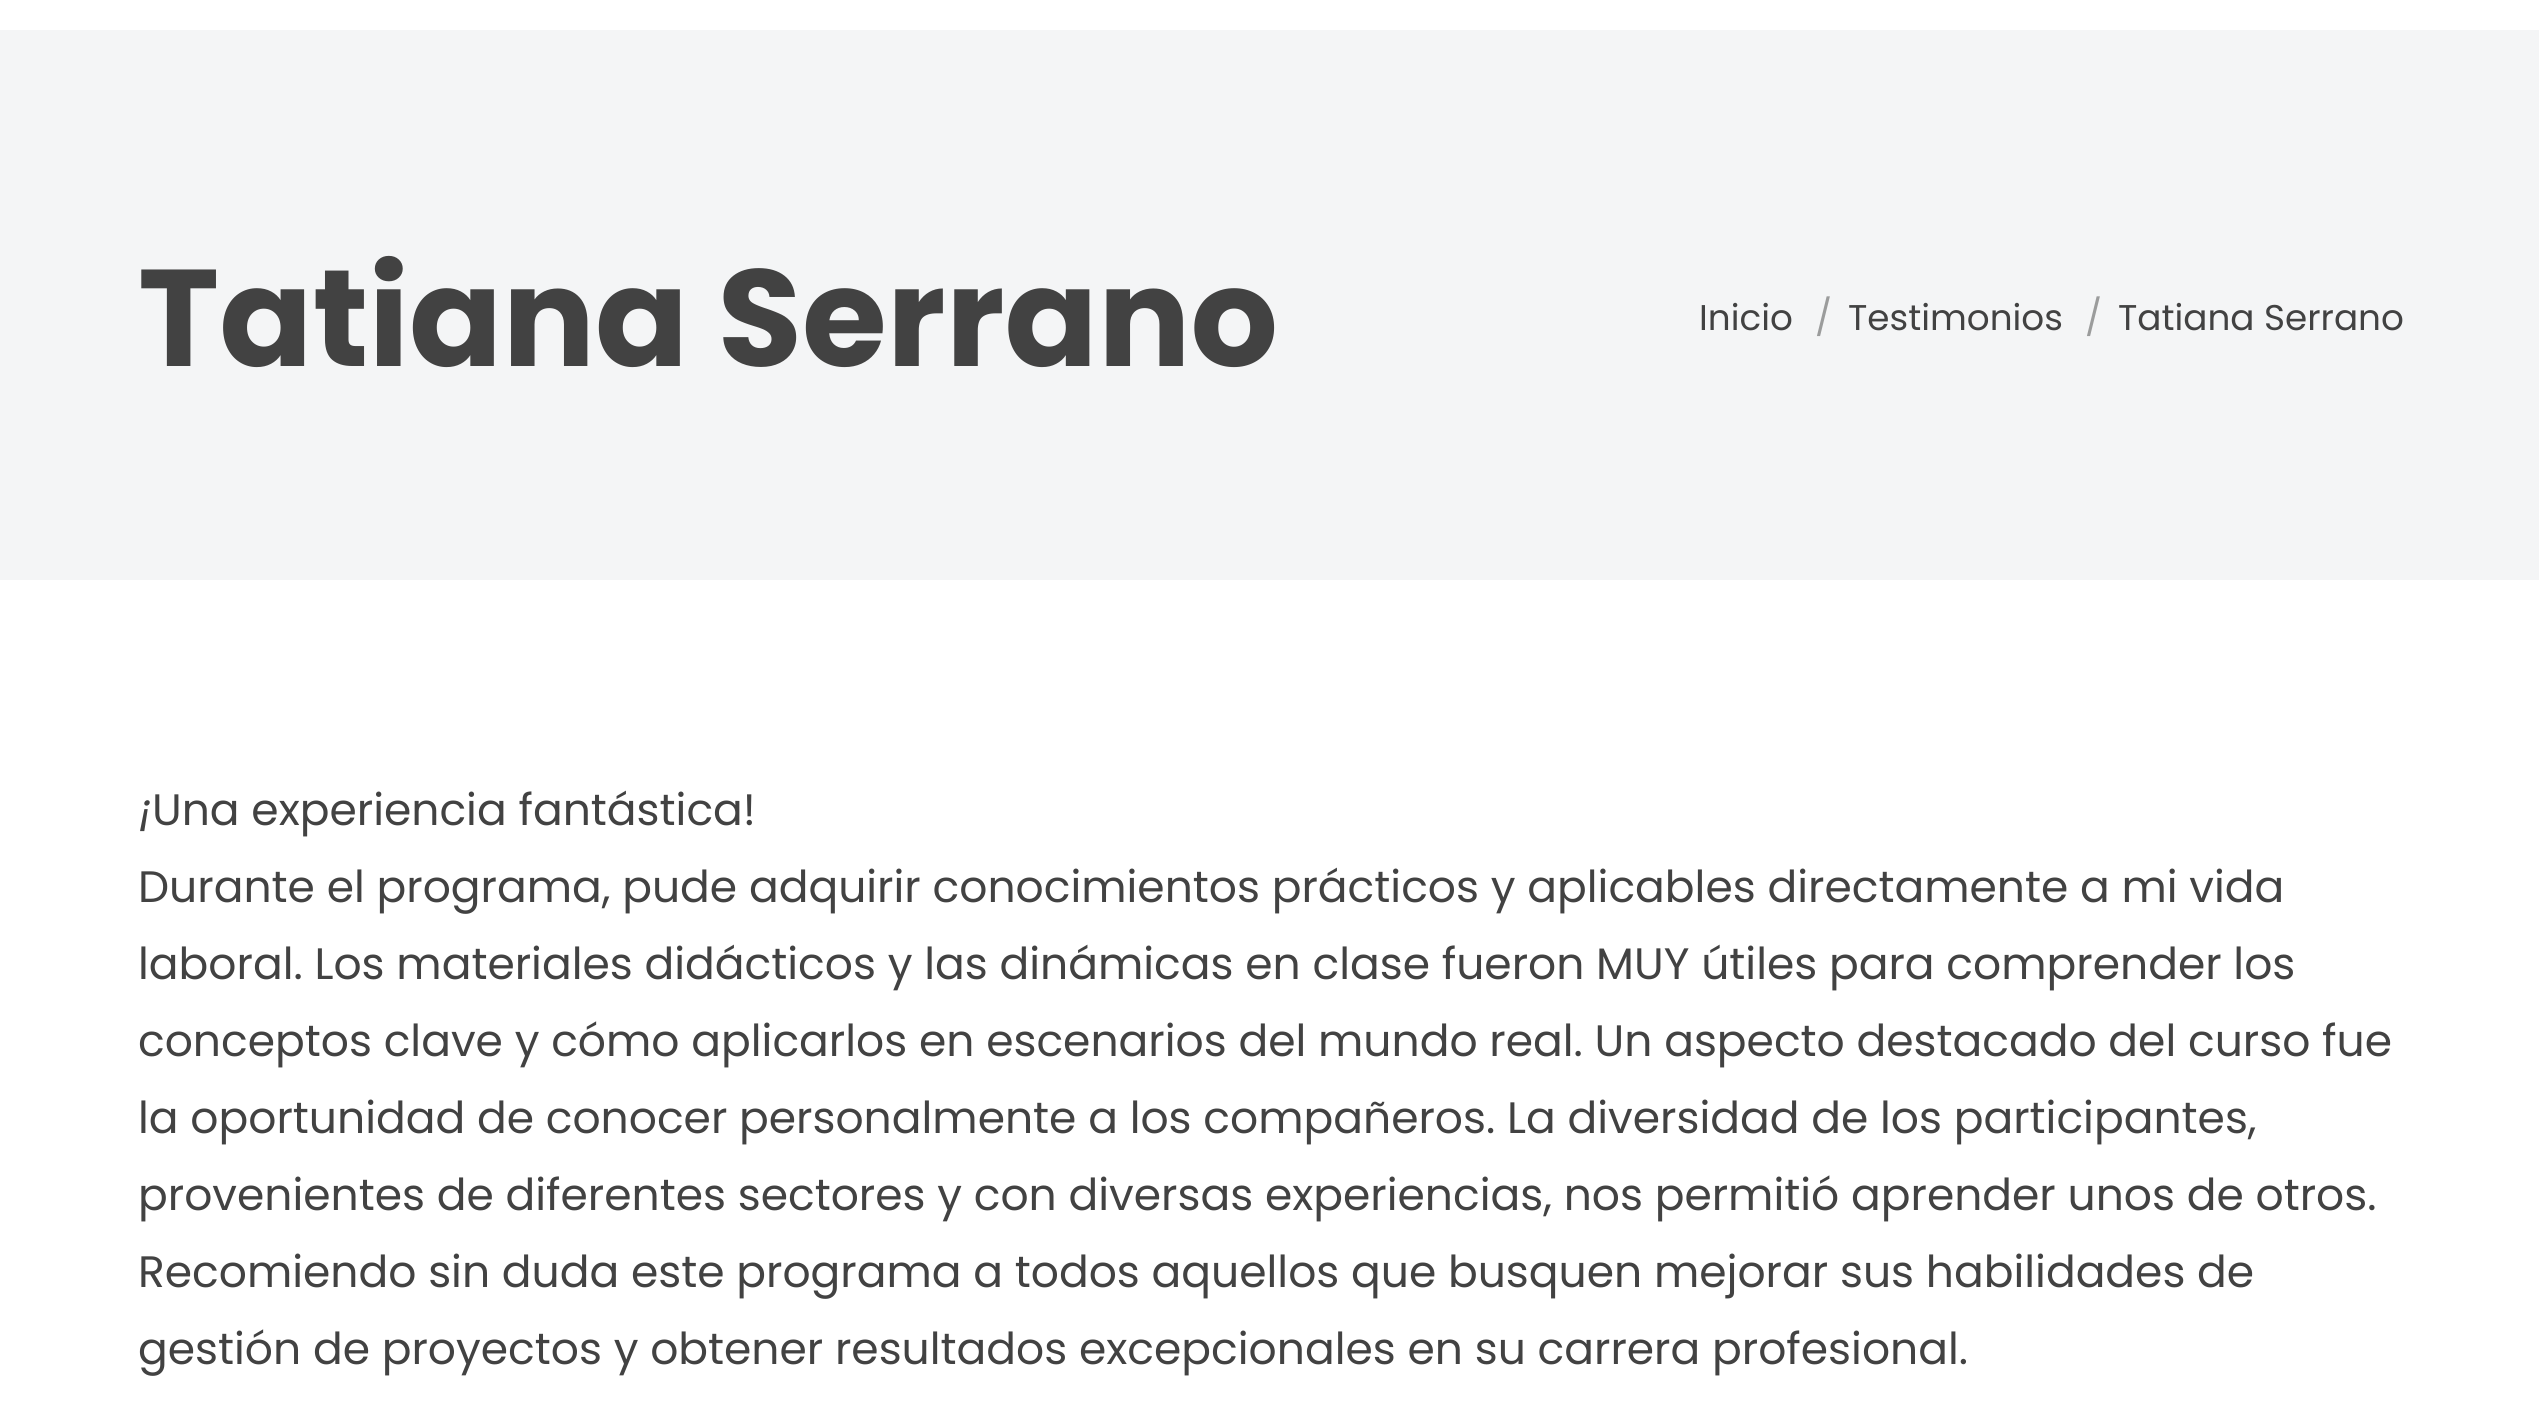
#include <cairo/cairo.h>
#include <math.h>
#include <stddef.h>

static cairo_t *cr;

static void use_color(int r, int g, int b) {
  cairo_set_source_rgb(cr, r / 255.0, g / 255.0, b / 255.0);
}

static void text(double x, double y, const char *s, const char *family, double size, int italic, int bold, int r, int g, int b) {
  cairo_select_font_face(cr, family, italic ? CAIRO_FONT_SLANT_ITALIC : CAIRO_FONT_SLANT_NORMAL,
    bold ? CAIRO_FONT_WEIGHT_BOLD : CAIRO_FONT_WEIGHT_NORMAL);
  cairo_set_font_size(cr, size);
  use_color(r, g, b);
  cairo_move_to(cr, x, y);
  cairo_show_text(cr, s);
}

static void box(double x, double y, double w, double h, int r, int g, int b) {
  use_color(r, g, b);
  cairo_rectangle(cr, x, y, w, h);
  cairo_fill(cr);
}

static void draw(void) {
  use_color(255, 255, 255);
  cairo_paint(cr);
  box(0, 30, 2539, 550, 244, 245, 246);
  text(138, 366, "Tatiana Serrano", "Poppins", 137.5, 0, 1, 66, 66, 66);
  text(1699, 330, "Inicio", "Poppins", 35.75, 0, 0, 66, 66, 66);
  text(1815, 330, "/", "Poppins", 35.75, 0, 0, 155, 156, 156);
  text(1848, 330, "Testimonios", "Poppins", 35.75, 0, 0, 66, 66, 66);
  text(2085, 330, "/", "Poppins", 35.75, 0, 0, 155, 156, 156);
  text(2118, 330, "Tatiana Serrano", "Poppins", 35.75, 0, 0, 66, 66, 66);
  text(138, 825, "¡", "Poppins", 44, 1, 0, 66, 66, 66);
  text(152, 825, "Una experiencia fantástica!", "Poppins", 44, 0, 0, 66, 66, 66);
  text(138, 902, "Durante el programa, pude adquirir conocimientos prácticos y aplicables directamente a mi vida", "Poppins", 44, 0, 0, 66, 66, 66);
  text(138, 979, "laboral. Los materiales didácticos y las dinámicas en clase fueron MUY útiles para comprender los", "Poppins", 44, 0, 0, 66, 66, 66);
  text(138, 1056, "conceptos clave y cómo aplicarlos en escenarios del mundo real. Un aspecto destacado del curso fue", "Poppins", 44, 0, 0, 66, 66, 66);
  text(138, 1133, "la oportunidad de conocer personalmente a los compañeros. La diversidad de los participantes,", "Poppins", 44, 0, 0, 66, 66, 66);
  text(138, 1210, "provenientes de diferentes sectores y con diversas experiencias, nos permitió aprender unos de otros.", "Poppins", 44, 0, 0, 66, 66, 66);
  text(138, 1287, "Recomiendo sin duda este programa a todos aquellos que busquen mejorar sus habilidades de", "Poppins", 44, 0, 0, 66, 66, 66);
  text(138, 1364, "gestión de proyectos y obtener resultados excepcionales en su carrera profesional.", "Poppins", 44, 0, 0, 66, 66, 66);
}

int main(void) {
  cairo_surface_t *surface = cairo_image_surface_create(CAIRO_FORMAT_RGB24, 2539, 1421);
  cr = cairo_create(surface);
  cairo_font_options_t *options = cairo_font_options_create();
  cairo_font_options_set_hint_metrics(options, CAIRO_HINT_METRICS_OFF);
  cairo_font_options_set_hint_style(options, CAIRO_HINT_STYLE_NONE);
  cairo_set_font_options(cr, options);
  cairo_set_miter_limit(cr, 4);
  draw();
  cairo_surface_write_to_png(surface, "out.png");
  cairo_font_options_destroy(options);
  cairo_destroy(cr);
  cairo_surface_destroy(surface);
  return 0;
}
